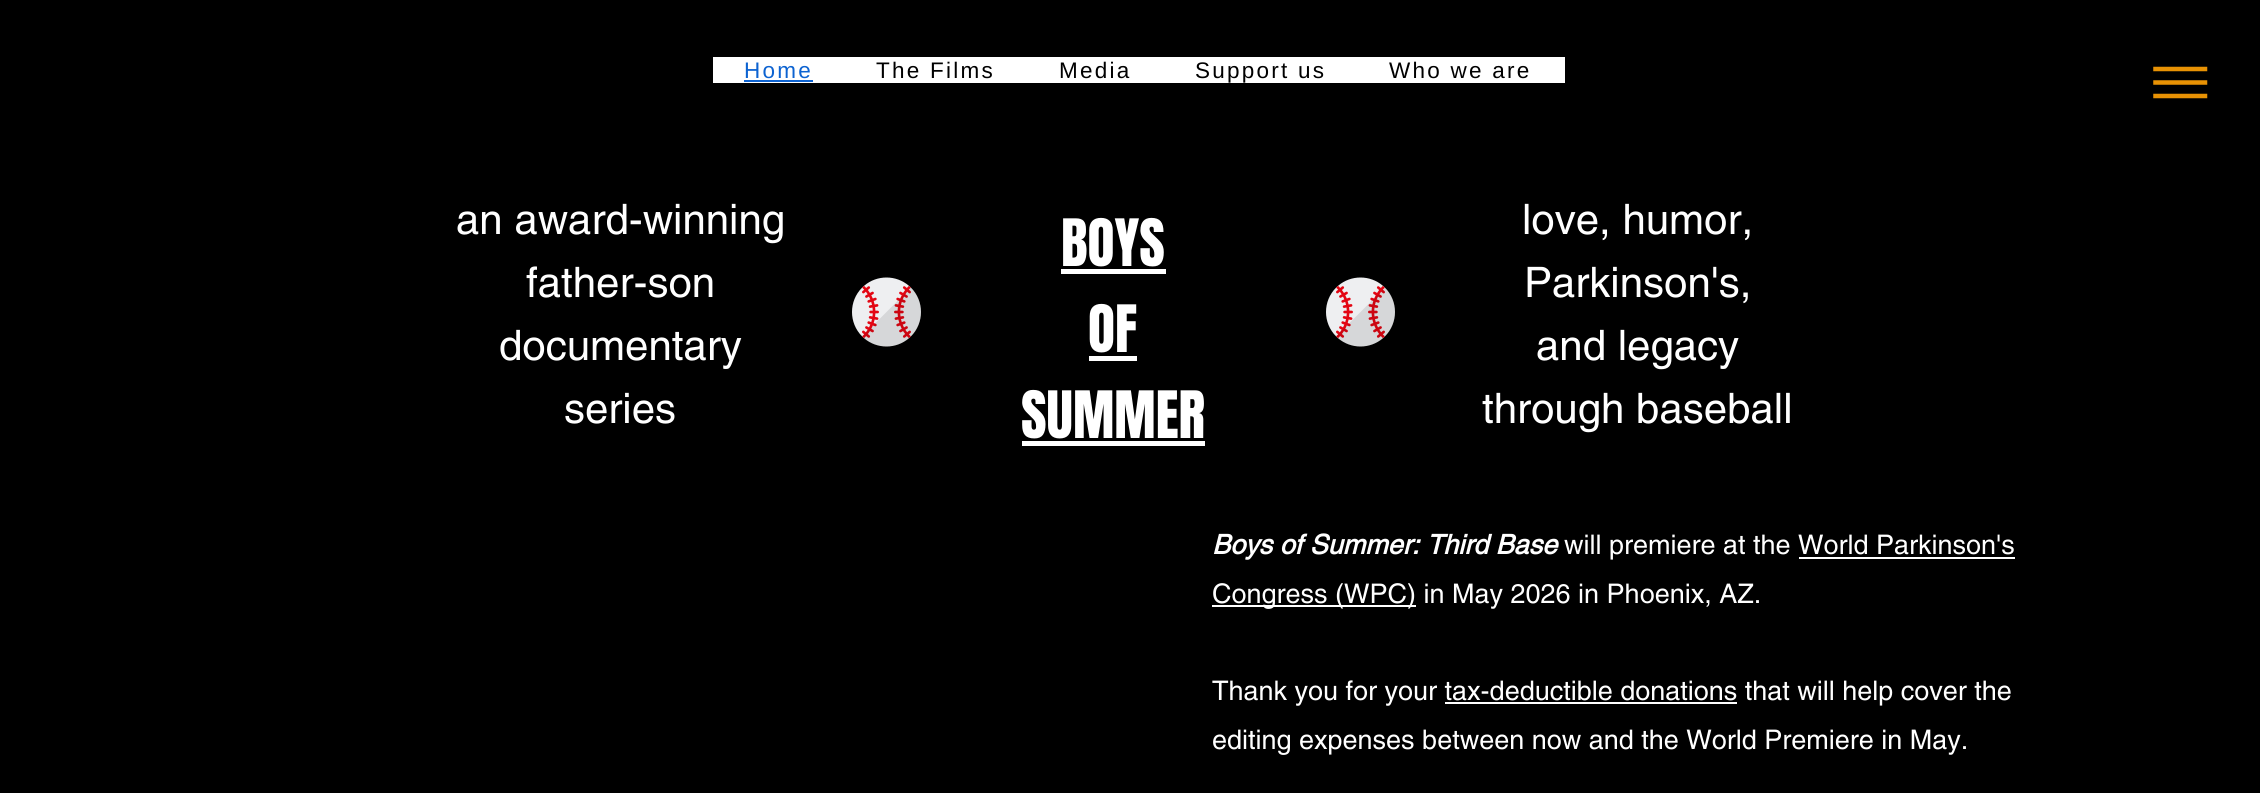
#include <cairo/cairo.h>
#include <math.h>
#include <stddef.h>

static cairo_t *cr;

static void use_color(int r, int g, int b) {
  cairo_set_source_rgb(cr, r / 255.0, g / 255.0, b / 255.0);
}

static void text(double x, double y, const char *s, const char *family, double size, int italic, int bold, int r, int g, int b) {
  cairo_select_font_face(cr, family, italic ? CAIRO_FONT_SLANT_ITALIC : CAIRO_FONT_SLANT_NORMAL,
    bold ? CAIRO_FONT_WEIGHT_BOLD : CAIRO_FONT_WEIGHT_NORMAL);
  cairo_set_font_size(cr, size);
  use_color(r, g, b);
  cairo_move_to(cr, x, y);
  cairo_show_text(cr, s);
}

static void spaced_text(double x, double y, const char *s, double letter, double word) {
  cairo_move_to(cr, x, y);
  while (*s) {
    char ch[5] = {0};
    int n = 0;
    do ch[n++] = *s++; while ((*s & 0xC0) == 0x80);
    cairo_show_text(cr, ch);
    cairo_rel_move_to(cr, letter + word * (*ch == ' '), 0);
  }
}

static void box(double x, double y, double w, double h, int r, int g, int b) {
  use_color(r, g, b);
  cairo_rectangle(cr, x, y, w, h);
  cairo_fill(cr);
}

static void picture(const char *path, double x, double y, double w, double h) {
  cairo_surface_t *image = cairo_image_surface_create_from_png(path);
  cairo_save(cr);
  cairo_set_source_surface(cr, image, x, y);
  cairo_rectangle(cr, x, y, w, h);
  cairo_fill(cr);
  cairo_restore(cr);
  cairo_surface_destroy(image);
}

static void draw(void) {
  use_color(0, 0, 0);
  cairo_paint(cr);
  box(713, 57, 852, 26, 255, 255, 255);
  box(744, 80, 69, 2, 13, 99, 209);
  box(2154, 68, 52, 2, 232, 146, 4);
  cairo_new_path(cr);
  cairo_move_to(cr, 2206.5, 67.5);
  cairo_line_to(cr, 2206.5, 70.5);
  cairo_line_to(cr, 2154, 70.5);
  cairo_line_to(cr, 2154, 67.5);
  cairo_close_path(cr);
  cairo_set_line_width(cr, 1.5);
  cairo_stroke(cr);
  box(2154, 81, 52, 3, 232, 146, 4);
  cairo_new_path(cr);
  cairo_move_to(cr, 2206.5, 81);
  cairo_line_to(cr, 2206.5, 84);
  cairo_line_to(cr, 2154, 84);
  cairo_line_to(cr, 2154, 81);
  cairo_close_path(cr);
  cairo_stroke(cr);
  box(2154, 95, 52, 2, 232, 146, 4);
  cairo_new_path(cr);
  cairo_move_to(cr, 2206.5, 94.5);
  cairo_line_to(cr, 2206.5, 97.5);
  cairo_line_to(cr, 2154, 97.5);
  cairo_line_to(cr, 2154, 94.5);
  cairo_close_path(cr);
  cairo_stroke(cr);
  picture("img_01.png", 852, 277, 69, 70);
  box(1061, 269, 105, 5, 255, 255, 255);
  box(1089, 356, 48, 5, 255, 255, 255);
  box(1022, 441, 183, 5, 255, 255, 255);
  picture("img_01.png", 1326, 277, 69, 70);
  box(1799, 557, 216, 2, 255, 255, 255);
  box(1212, 605, 204, 2, 255, 255, 255);
  box(1445, 702, 292, 2, 255, 255, 255);
  cairo_select_font_face(cr, "Liberation Sans", CAIRO_FONT_SLANT_NORMAL, CAIRO_FONT_WEIGHT_NORMAL);
  cairo_set_font_size(cr, 22.5);
  use_color(13, 99, 209);
  spaced_text(744, 78, "Home", 2.25, 0);
  use_color(0, 0, 0);
  spaced_text(876, 78, "The Films", 2.25, 0);
  spaced_text(1059, 78, "Media", 2.25, 0);
  spaced_text(1195, 78, "Support us", 2.25, 0);
  spaced_text(1389, 78, "Who we are", 2.25, 0);
  text(456, 234, "an award-winning", "helvetica", 42, 0, 0, 255, 255, 255);
  text(526, 297, "father-son", "helvetica", 42, 0, 0, 255, 255, 255);
  text(499, 360, "documentary", "helvetica", 42, 0, 0, 255, 255, 255);
  text(564, 423, "series", "helvetica", 42, 0, 0, 255, 255, 255);
  text(1061, 266, "BOYS", "Anton", 55.5, 0, 0, 255, 255, 255);
  text(1088, 352, "OF", "Anton", 55.5, 0, 0, 255, 255, 255);
  text(1021, 438, "SUMMER", "Anton", 55.5, 0, 0, 255, 255, 255);
  text(1522, 234, "love, humor,", "helvetica", 42, 0, 0, 255, 255, 255);
  text(1524, 297, "Parkinson's,", "helvetica", 42, 0, 0, 255, 255, 255);
  text(1536, 360, "and legacy", "helvetica", 42, 0, 0, 255, 255, 255);
  text(1482, 423, "through baseball", "helvetica", 42, 0, 0, 255, 255, 255);
  text(1212, 554, "Boys of Summer: Third Base", "helvetica", 27, 1, 1, 255, 255, 255);
  text(1564, 554, "will premiere at the World Parkinson's", "helvetica", 27, 0, 0, 255, 255, 255);
  text(1212, 603, "Congress (WPC) in May 2026 in Phoenix, AZ.", "helvetica", 27, 0, 0, 255, 255, 255);
  text(1212, 700, "Thank you for your tax-deductible donations that will help cover the", "helvetica", 27, 0, 0, 255, 255, 255);
  text(1212, 749, "editing expenses between now and the World Premiere in May.", "helvetica", 27, 0, 0, 255, 255, 255);
}

int main(void) {
  cairo_surface_t *surface = cairo_image_surface_create(CAIRO_FORMAT_RGB24, 2260, 793);
  cr = cairo_create(surface);
  cairo_font_options_t *options = cairo_font_options_create();
  cairo_font_options_set_hint_metrics(options, CAIRO_HINT_METRICS_OFF);
  cairo_font_options_set_hint_style(options, CAIRO_HINT_STYLE_NONE);
  cairo_set_font_options(cr, options);
  cairo_set_miter_limit(cr, 4);
  draw();
  cairo_surface_write_to_png(surface, "out.png");
  cairo_font_options_destroy(options);
  cairo_destroy(cr);
  cairo_surface_destroy(surface);
  return 0;
}
